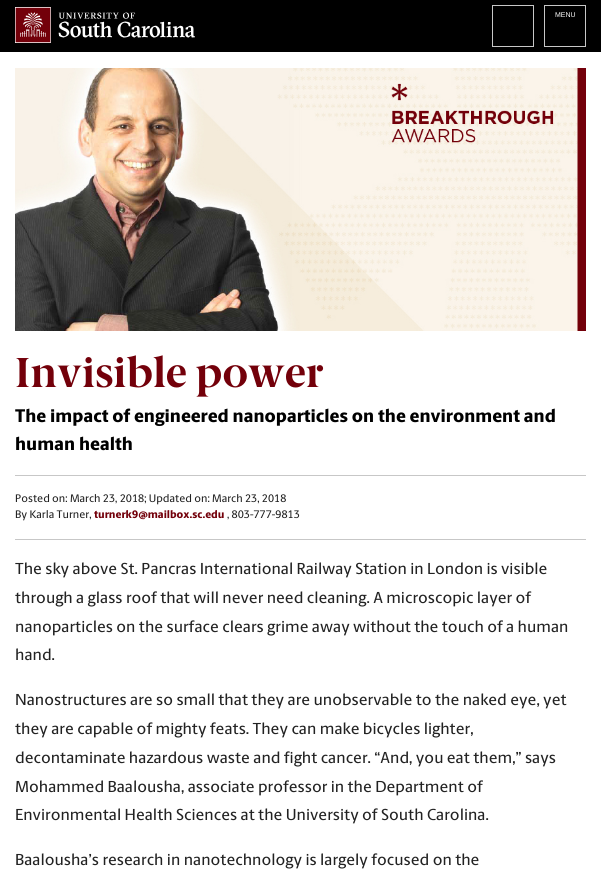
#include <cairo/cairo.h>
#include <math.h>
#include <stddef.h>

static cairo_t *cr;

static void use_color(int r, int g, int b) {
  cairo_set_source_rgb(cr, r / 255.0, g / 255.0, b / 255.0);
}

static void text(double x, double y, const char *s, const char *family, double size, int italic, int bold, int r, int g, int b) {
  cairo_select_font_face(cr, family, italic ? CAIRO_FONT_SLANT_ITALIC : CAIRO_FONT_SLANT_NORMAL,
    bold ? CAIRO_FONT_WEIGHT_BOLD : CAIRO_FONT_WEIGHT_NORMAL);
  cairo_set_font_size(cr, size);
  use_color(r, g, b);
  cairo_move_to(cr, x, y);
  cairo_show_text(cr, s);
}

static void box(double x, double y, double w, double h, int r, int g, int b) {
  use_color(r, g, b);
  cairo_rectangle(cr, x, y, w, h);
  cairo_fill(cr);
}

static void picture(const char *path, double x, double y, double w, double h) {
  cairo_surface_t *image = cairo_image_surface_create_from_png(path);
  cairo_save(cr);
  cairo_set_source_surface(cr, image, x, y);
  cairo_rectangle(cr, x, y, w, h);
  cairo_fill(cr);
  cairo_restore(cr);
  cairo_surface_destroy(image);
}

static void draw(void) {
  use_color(255, 255, 255);
  cairo_paint(cr);
  box(0, 0, 601, 52, 0, 0, 0);
  picture("img_01.png", 15, 7, 180, 36);
  cairo_rectangle(cr, 492.5, 5.5, 41, 41);
  use_color(199, 199, 199);
  cairo_set_line_width(cr, 1);
  cairo_stroke(cr);
  cairo_rectangle(cr, 544.5, 5.5, 41, 41);
  cairo_stroke(cr);
  picture("img_02.png", 15, 68, 571, 263);
  box(15, 475, 571, 1, 199, 199, 199);
  box(15, 539, 571, 1, 199, 199, 199);
  text(555, 17, "MENU", "Liberation Sans", 7, 0, 0, 255, 255, 255);
  text(15, 387, "Invisible power", "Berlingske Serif", 42, 0, 1, 115, 0, 10);
  text(15, 422, "The impact of engineered nanoparticles on the environment and", "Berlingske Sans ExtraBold", 18.4, 0, 0, 0, 0, 0);
  text(15, 450, "human health", "Berlingske Sans ExtraBold", 18.4, 0, 0, 0, 0, 0);
  text(15, 502, "Posted on: March 23, 2018; Updated on: March 23, 2018", "Berlingske Sans Medium", 11, 0, 0, 34, 34, 34);
  text(15, 518, "By Karla Turner,", "Berlingske Sans Medium", 11, 0, 0, 34, 34, 34);
  text(94, 518, "turnerk9@mailbox.sc.edu", "Berlingske Sans ExtraBold", 11, 0, 0, 115, 0, 10);
  text(227, 518, ", 803-777-9813", "Berlingske Sans Medium", 11, 0, 0, 34, 34, 34);
  text(15, 574, "The sky above St. Pancras International Railway Station in London is visible", "Berlingske Sans Medium", 16, 0, 0, 34, 34, 34);
  text(15, 603, "through a glass roof that will never need cleaning. A microscopic layer of", "Berlingske Sans Medium", 16, 0, 0, 34, 34, 34);
  text(15, 632, "nanoparticles on the surface clears grime away without the touch of a human", "Berlingske Sans Medium", 16, 0, 0, 34, 34, 34);
  text(15, 660, "hand.", "Berlingske Sans Medium", 16, 0, 0, 34, 34, 34);
  text(15, 705, "Nanostructures are so small that they are unobservable to the naked eye, yet", "Berlingske Sans Medium", 16, 0, 0, 34, 34, 34);
  text(15, 734, "they are capable of mighty feats. They can make bicycles lighter,", "Berlingske Sans Medium", 16, 0, 0, 34, 34, 34);
  text(15, 763, "decontaminate hazardous waste and fight cancer. “And, you eat them,” says", "Berlingske Sans Medium", 16, 0, 0, 34, 34, 34);
  text(15, 792, "Mohammed Baalousha, associate professor in the Department of", "Berlingske Sans Medium", 16, 0, 0, 34, 34, 34);
  text(15, 820, "Environmental Health Sciences at the University of South Carolina.", "Berlingske Sans Medium", 16, 0, 0, 34, 34, 34);
  text(15, 865, "Baalousha’s research in nanotechnology is largely focused on the", "Berlingske Sans Medium", 16, 0, 0, 34, 34, 34);
}

int main(void) {
  cairo_surface_t *surface = cairo_image_surface_create(CAIRO_FORMAT_RGB24, 601, 890);
  cr = cairo_create(surface);
  cairo_font_options_t *options = cairo_font_options_create();
  cairo_font_options_set_hint_metrics(options, CAIRO_HINT_METRICS_OFF);
  cairo_font_options_set_hint_style(options, CAIRO_HINT_STYLE_NONE);
  cairo_set_font_options(cr, options);
  cairo_set_miter_limit(cr, 4);
  draw();
  cairo_surface_write_to_png(surface, "out.png");
  cairo_font_options_destroy(options);
  cairo_destroy(cr);
  cairo_surface_destroy(surface);
  return 0;
}
